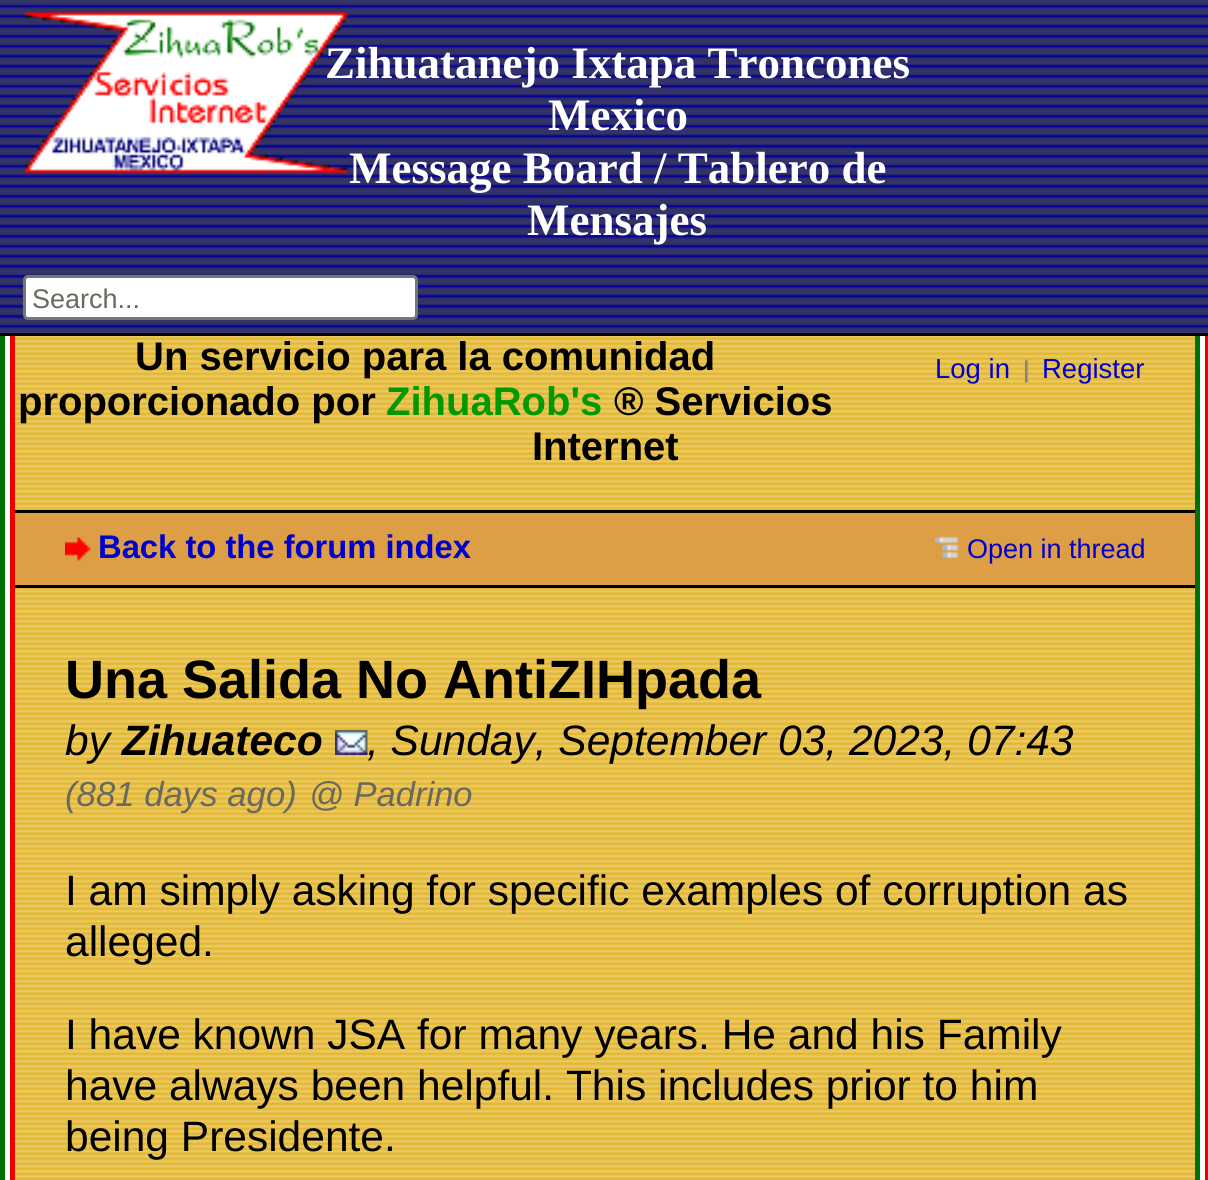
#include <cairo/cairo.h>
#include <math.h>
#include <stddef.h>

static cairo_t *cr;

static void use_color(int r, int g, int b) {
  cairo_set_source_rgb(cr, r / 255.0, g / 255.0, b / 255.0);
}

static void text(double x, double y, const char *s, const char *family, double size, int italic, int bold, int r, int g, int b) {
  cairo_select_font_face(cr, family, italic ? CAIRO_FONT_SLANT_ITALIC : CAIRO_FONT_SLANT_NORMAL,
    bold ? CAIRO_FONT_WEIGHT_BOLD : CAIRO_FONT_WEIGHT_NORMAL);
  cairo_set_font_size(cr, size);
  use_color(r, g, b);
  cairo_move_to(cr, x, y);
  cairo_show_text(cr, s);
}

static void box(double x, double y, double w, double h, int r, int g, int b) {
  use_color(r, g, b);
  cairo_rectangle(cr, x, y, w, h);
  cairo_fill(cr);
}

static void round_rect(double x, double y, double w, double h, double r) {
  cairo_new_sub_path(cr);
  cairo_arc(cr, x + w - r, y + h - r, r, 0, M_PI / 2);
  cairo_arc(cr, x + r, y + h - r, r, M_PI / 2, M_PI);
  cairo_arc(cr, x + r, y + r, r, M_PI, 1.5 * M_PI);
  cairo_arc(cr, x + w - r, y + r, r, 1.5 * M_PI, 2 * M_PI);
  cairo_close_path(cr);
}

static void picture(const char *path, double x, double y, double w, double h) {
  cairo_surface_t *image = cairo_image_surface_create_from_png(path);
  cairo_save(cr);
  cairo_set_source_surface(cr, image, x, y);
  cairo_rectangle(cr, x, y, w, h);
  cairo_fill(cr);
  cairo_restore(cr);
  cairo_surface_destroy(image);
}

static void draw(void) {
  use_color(255, 255, 255);
  cairo_paint(cr);
  picture("img_01.png", 15, 336, 1180, 844);
  box(0, 0, 1208, 4, 51, 51, 102);
  picture("img_02.png", 0, 4, 1208, 329);
  use_color(235, 0, 0);
  cairo_new_path(cr);
  cairo_move_to(cr, 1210, 335);
  cairo_line_to(cr, 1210, 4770);
  cairo_line_to(cr, 1205, 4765);
  cairo_line_to(cr, 1205, 335);
  cairo_close_path(cr);
  cairo_fill(cr);
  box(0, 335, 5, 845, 0, 112, 0);
  cairo_new_path(cr);
  cairo_move_to(cr, 1200, 335);
  cairo_line_to(cr, 1200, 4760);
  cairo_line_to(cr, 1195, 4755);
  cairo_line_to(cr, 1195, 335);
  cairo_close_path(cr);
  cairo_fill(cr);
  box(10, 335, 5, 845, 235, 0, 0);
  box(0, 333, 1208, 3, 1, 1, 1);
  picture("img_03.png", 25, 12, 323, 161);
  use_color(255, 255, 255);
  round_rect(24.5, 276.5, 392, 42, 3.5);
  cairo_fill_preserve(cr);
  use_color(118, 118, 118);
  cairo_set_line_width(cr, 3);
  cairo_stroke(cr);
  picture("img_04.png", 1025, 359, 4, 24);
  box(15, 513, 1180, 72, 222, 158, 69);
  box(15, 510, 1180, 3, 1, 1, 1);
  box(15, 585, 1180, 3, 1, 1, 1);
  picture("img_05.png", 65, 537, 26, 24);
  picture("img_06.png", 935, 536, 24, 23);
  picture("img_07.png", 335, 730, 33, 25);
  text(325, 78, "Zihuatanejo Ixtapa Troncones", "Liberation Serif", 45, 0, 1, 255, 255, 255);
  text(548, 130, "Mexico", "Liberation Serif", 45, 0, 1, 255, 255, 255);
  text(349, 183, "Message Board / Tablero de", "Liberation Serif", 45, 0, 1, 255, 255, 255);
  text(527, 235, "Mensajes", "Liberation Serif", 45, 0, 1, 255, 255, 255);
  text(32, 308, "Search...", "Liberation Sans", 27, 0, 0, 107, 104, 94);
  text(135, 370, "Un servicio para la comunidad", "Liberation Sans", 40, 0, 1, 0, 0, 0);
  text(18, 415, "proporcionado por", "Liberation Sans", 40, 0, 1, 0, 0, 0);
  text(386, 415, "ZihuaRob's", "Liberation Sans", 40, 0, 1, 0, 153, 0);
  text(614, 415, "® Servicios", "Liberation Sans", 40, 0, 1, 0, 0, 0);
  text(532, 460, "Internet", "Liberation Sans", 40, 0, 1, 0, 0, 0);
  text(935, 378, "Log in", "Liberation Sans", 27.5, 0, 0, 0, 0, 204);
  text(1042, 378, "Register", "Liberation Sans", 27.5, 0, 0, 0, 0, 204);
  text(98, 558, "Back to the forum index", "Liberation Sans", 32.75, 0, 1, 0, 0, 204);
  text(967, 558, "Open in thread", "Liberation Sans", 27, 0, 0, 0, 0, 204);
  text(65, 698, "Una Salida No AntiZIHpada", "Liberation Sans", 54, 0, 1, 0, 0, 0);
  text(65, 755, "by", "Liberation Sans", 42.5, 1, 0, 0, 0, 0);
  text(122, 755, "Zihuateco", "Liberation Sans", 42.5, 1, 1, 0, 0, 0);
  text(367, 755, ", Sunday, September 03, 2023, 07:43", "Liberation Sans", 42.5, 1, 0, 0, 0, 0);
  text(65, 806, "(881 days ago)", "Liberation Sans", 34.75, 1, 0, 107, 104, 94);
  text(309, 806, "@ Padrino", "Liberation Sans", 34.5, 1, 0, 107, 104, 94);
  text(65, 905, "I am simply asking for specific examples of corruption as", "Liberation Sans", 42.5, 0, 0, 0, 0, 0);
  text(65, 956, "alleged.", "Liberation Sans", 42.5, 0, 0, 0, 0, 0);
  text(65, 1049, "I have known JSA for many years. He and his Family", "Liberation Sans", 42.5, 0, 0, 0, 0, 0);
  text(65, 1100, "have always been helpful. This includes prior to him", "Liberation Sans", 42.5, 0, 0, 0, 0, 0);
  text(65, 1151, "being Presidente.", "Liberation Sans", 42.5, 0, 0, 0, 0, 0);
}

int main(void) {
  cairo_surface_t *surface = cairo_image_surface_create(CAIRO_FORMAT_RGB24, 1208, 1180);
  cr = cairo_create(surface);
  cairo_font_options_t *options = cairo_font_options_create();
  cairo_font_options_set_hint_metrics(options, CAIRO_HINT_METRICS_OFF);
  cairo_font_options_set_hint_style(options, CAIRO_HINT_STYLE_NONE);
  cairo_set_font_options(cr, options);
  cairo_set_miter_limit(cr, 4);
  draw();
  cairo_surface_write_to_png(surface, "out.png");
  cairo_font_options_destroy(options);
  cairo_destroy(cr);
  cairo_surface_destroy(surface);
  return 0;
}
